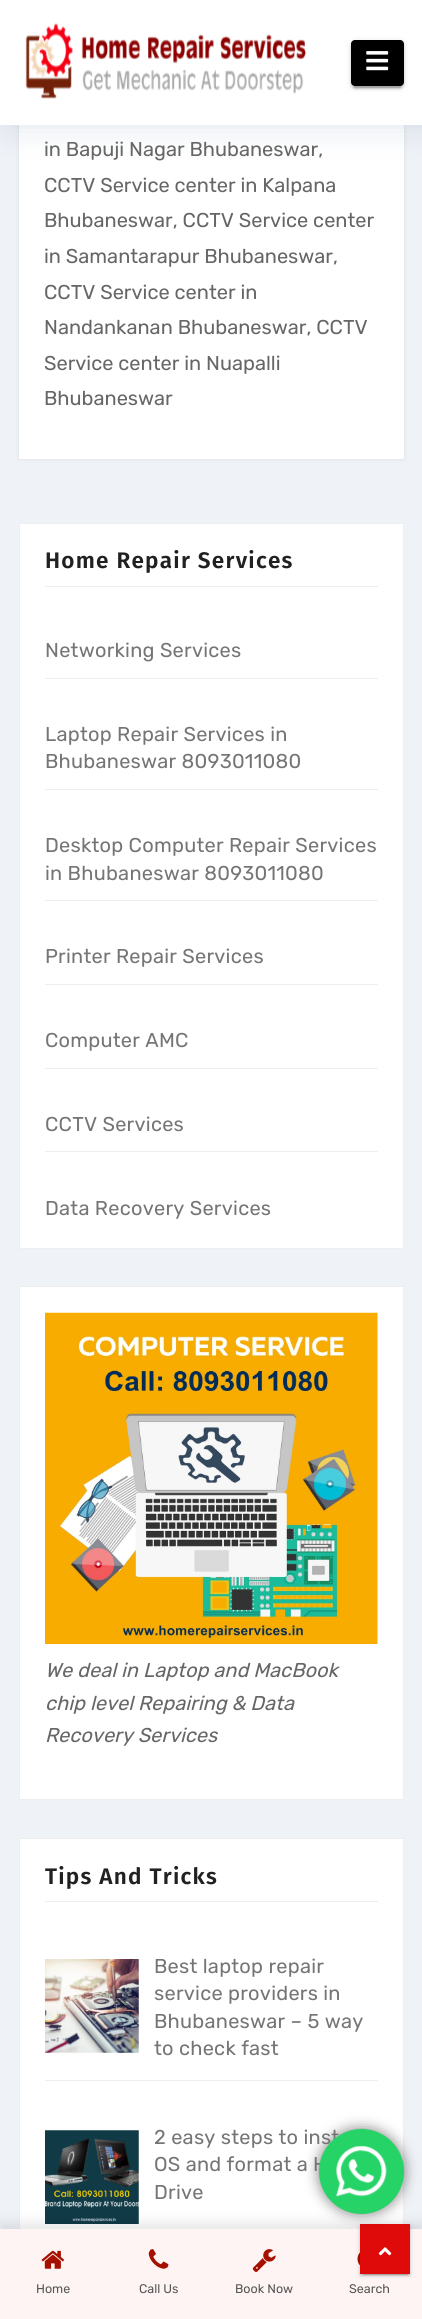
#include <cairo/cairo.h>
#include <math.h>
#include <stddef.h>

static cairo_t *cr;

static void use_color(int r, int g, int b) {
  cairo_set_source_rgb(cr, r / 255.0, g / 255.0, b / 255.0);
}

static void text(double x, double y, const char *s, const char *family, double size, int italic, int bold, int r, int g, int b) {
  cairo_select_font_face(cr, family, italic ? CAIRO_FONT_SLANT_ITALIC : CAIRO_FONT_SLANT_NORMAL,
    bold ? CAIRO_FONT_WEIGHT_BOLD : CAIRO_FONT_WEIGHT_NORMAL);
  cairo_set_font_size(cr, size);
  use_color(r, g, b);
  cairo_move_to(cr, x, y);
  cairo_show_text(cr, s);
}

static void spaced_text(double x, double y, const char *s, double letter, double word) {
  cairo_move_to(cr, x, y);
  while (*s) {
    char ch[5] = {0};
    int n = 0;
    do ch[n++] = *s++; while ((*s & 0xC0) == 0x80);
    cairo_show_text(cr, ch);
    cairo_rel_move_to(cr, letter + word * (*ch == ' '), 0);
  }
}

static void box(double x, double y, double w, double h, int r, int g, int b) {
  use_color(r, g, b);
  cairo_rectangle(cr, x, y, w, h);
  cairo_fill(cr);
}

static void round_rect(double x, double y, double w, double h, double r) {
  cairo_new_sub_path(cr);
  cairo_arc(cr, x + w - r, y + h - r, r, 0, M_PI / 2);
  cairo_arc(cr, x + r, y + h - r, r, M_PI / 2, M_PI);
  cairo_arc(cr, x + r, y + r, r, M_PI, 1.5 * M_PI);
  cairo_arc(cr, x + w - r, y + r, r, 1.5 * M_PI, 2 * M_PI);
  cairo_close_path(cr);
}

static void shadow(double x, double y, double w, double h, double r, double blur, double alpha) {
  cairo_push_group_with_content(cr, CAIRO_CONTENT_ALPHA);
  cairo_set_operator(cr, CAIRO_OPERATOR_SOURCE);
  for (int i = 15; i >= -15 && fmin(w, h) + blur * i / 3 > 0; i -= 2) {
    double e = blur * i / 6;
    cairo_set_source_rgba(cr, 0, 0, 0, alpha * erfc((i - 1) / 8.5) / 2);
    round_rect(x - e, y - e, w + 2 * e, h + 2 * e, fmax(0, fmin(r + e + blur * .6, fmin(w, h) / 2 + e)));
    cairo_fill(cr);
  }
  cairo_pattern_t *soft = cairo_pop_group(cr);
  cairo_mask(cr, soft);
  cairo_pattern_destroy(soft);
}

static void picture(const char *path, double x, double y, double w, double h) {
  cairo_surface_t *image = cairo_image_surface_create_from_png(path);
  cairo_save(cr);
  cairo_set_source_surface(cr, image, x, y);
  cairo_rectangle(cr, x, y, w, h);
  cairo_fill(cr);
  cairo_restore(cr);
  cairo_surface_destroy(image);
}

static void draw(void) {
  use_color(239, 242, 247);
  cairo_paint(cr);
  use_color(0, 0, 0);
  shadow(19, -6, 385, 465, 0, 2, 0.1);
  box(19, 125, 385, 334, 255, 255, 255);
  use_color(2, 45, 98);
  shadow(6, 6, 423, 125, 0, 15, 0.1);
  box(0, 0, 422, 125, 255, 255, 255);
  picture("img_01.png", 25, 23, 281, 76);
  use_color(0, 0, 0);
  shadow(351, 41, 53, 47, 4, 3, 0.12);
  shadow(354, 46, 47, 42, 1, 0.5, 0.2);
  shadow(351, 43, 53, 46, 4, 1, 0.14);
  use_color(0, 0, 0);
  round_rect(351, 40, 53, 46, 4);
  cairo_fill(cr);
  picture("img_02.png", 366, 51, 23, 20);
  use_color(255, 255, 255);
  cairo_rectangle(cr, 19.5, 523.5, 384, 725);
  cairo_fill_preserve(cr);
  use_color(238, 238, 238);
  cairo_set_line_width(cr, 1);
  cairo_stroke(cr);
  box(45, 586, 333, 1, 238, 238, 238);
  box(45, 678, 333, 1, 238, 238, 238);
  box(45, 789, 333, 1, 238, 238, 238);
  box(45, 900, 333, 1, 238, 238, 238);
  box(45, 984, 333, 1, 238, 238, 238);
  box(45, 1068, 333, 1, 238, 238, 238);
  box(45, 1151, 333, 1, 238, 238, 238);
  use_color(255, 255, 255);
  cairo_rectangle(cr, 19.5, 1286.5, 384, 513);
  cairo_fill_preserve(cr);
  use_color(238, 238, 238);
  cairo_stroke(cr);
  picture("img_03.png", 45, 1312, 333, 332);
  box(20, 1839, 383, 390, 255, 255, 255);
  cairo_rectangle(cr, 19.5, 1838.5, 384, 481);
  use_color(238, 238, 238);
  cairo_stroke(cr);
  box(45, 1901, 333, 1, 238, 238, 238);
  box(45, 2080, 333, 1, 238, 238, 238);
  picture("img_04.png", 45, 1959, 94, 94);
  picture("img_05.png", 45, 2130, 94, 94);
  use_color(0, 0, 0);
  shadow(0, 2223, 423, 91, 0, 6, 0.1);
  box(0, 2229, 422, 90, 255, 244, 244);
  picture("img_11.png", 357, 2252, 3, 14);
  use_color(0, 0, 0);
  shadow(360, 2225, 50, 50, 0, 3, 0.12);
  shadow(363, 2230, 45, 45, 0, 0.5, 0.2);
  shadow(360, 2226, 50, 50, 0, 1, 0.14);
  box(360, 2224, 50, 50, 223, 10, 10);
  use_color(0, 0, 0);
  shadow(319, 2129, 85, 85, 42.5, 7, 0.5);
  picture("img_07.png", 378, 2247, 14, 9);
  picture("img_08.png", 41, 2250, 23, 19);
  picture("img_09.png", 148, 2249, 21, 20);
  picture("img_10.png", 252, 2249, 24, 23);
  text(44, 156, "in Bapuji Nagar Bhubaneswar,", "Rubik", 20, 0, 0, 102, 102, 102);
  text(44, 192, "CCTV Service center in Kalpana", "Rubik", 20, 0, 0, 102, 102, 102);
  text(44, 227, "Bhubaneswar, CCTV Service center", "Rubik", 20, 0, 0, 102, 102, 102);
  text(44, 263, "in Samantarapur Bhubaneswar,", "Rubik", 20, 0, 0, 102, 102, 102);
  text(44, 299, "CCTV Service center in", "Rubik", 20, 0, 0, 102, 102, 102);
  text(44, 334, "Nandankanan Bhubaneswar, CCTV", "Rubik", 20, 0, 0, 102, 102, 102);
  text(44, 370, "Service center in Nuapalli", "Rubik", 20, 0, 0, 102, 102, 102);
  text(44, 405, "Bhubaneswar", "Rubik", 20, 0, 0, 102, 102, 102);
  cairo_select_font_face(cr, "Fira Sans SemiBold", CAIRO_FONT_SLANT_NORMAL, CAIRO_FONT_WEIGHT_NORMAL);
  cairo_set_font_size(cr, 22.5);
  use_color(33, 33, 33);
  spaced_text(45, 568, "Home Repair Services", 1.25, 0);
  cairo_select_font_face(cr, "Rubik", CAIRO_FONT_SLANT_NORMAL, CAIRO_FONT_WEIGHT_NORMAL);
  cairo_set_font_size(cr, 20);
  use_color(117, 117, 117);
  spaced_text(45, 657, "Networking Services", 0.25, 0);
  spaced_text(45, 741, "Laptop Repair Services in", 0.25, 0);
  spaced_text(45, 768, "Bhubaneswar 8093011080", 0.25, 0);
  spaced_text(45, 852, "Desktop Computer Repair Services", 0.25, 0);
  spaced_text(45, 880, "in Bhubaneswar 8093011080", 0.25, 0);
  spaced_text(45, 963, "Printer Repair Services", 0.25, 0);
  spaced_text(45, 1047, "Computer AMC", 0.25, 0);
  spaced_text(45, 1131, "CCTV Services", 0.25, 0);
  spaced_text(45, 1215, "Data Recovery Services", 0.25, 0);
  text(45, 1677, "We deal in Laptop and MacBook", "Rubik", 20, 1, 0, 102, 102, 102);
  text(45, 1710, "chip level Repairing & Data", "Rubik", 20, 1, 0, 102, 102, 102);
  text(45, 1742, "Recovery Services", "Rubik", 20, 1, 0, 102, 102, 102);
  cairo_select_font_face(cr, "Fira Sans SemiBold", CAIRO_FONT_SLANT_NORMAL, CAIRO_FONT_WEIGHT_NORMAL);
  cairo_set_font_size(cr, 22.5);
  use_color(33, 33, 33);
  spaced_text(45, 1884, "Tips And Tricks", 1.25, 0);
  cairo_select_font_face(cr, "Rubik", CAIRO_FONT_SLANT_NORMAL, CAIRO_FONT_WEIGHT_NORMAL);
  cairo_set_font_size(cr, 20);
  use_color(117, 117, 117);
  spaced_text(154, 1973, "Best laptop repair", 0.25, 0);
  spaced_text(154, 2000, "service providers in", 0.25, 0);
  spaced_text(154, 2028, "Bhubaneswar – 5 way", 0.25, 0);
  spaced_text(154, 2055, "to check fast", 0.25, 0);
  spaced_text(154, 2144, "2 easy steps to inst", 0.25, 0);
  spaced_text(154, 2171, "OS and format a H", 0.25, 0);
  spaced_text(154, 2199, "Drive", 0.25, 0);
  use_color(37, 211, 102);
  cairo_new_path(cr);
  cairo_arc(cr, 361.5, 2171.5, 42.5, 0, 2 * M_PI);
  cairo_fill(cr);
  picture("img_06.png", 336, 2146, 51, 51);
  text(36, 2293, "Home", "Rubik", 12.5, 0, 0, 85, 85, 85);
  text(139, 2293, "Call Us", "Rubik", 12.5, 0, 0, 85, 85, 85);
  text(235, 2293, "Book Now", "Rubik", 12.5, 0, 0, 85, 85, 85);
  text(349, 2293, "Search", "Rubik", 12.5, 0, 0, 85, 85, 85);
}

int main(void) {
  cairo_surface_t *surface = cairo_image_surface_create(CAIRO_FORMAT_RGB24, 422, 2319);
  cr = cairo_create(surface);
  cairo_font_options_t *options = cairo_font_options_create();
  cairo_font_options_set_hint_metrics(options, CAIRO_HINT_METRICS_OFF);
  cairo_font_options_set_hint_style(options, CAIRO_HINT_STYLE_NONE);
  cairo_set_font_options(cr, options);
  cairo_set_miter_limit(cr, 4);
  draw();
  cairo_surface_write_to_png(surface, "out.png");
  cairo_font_options_destroy(options);
  cairo_destroy(cr);
  cairo_surface_destroy(surface);
  return 0;
}
